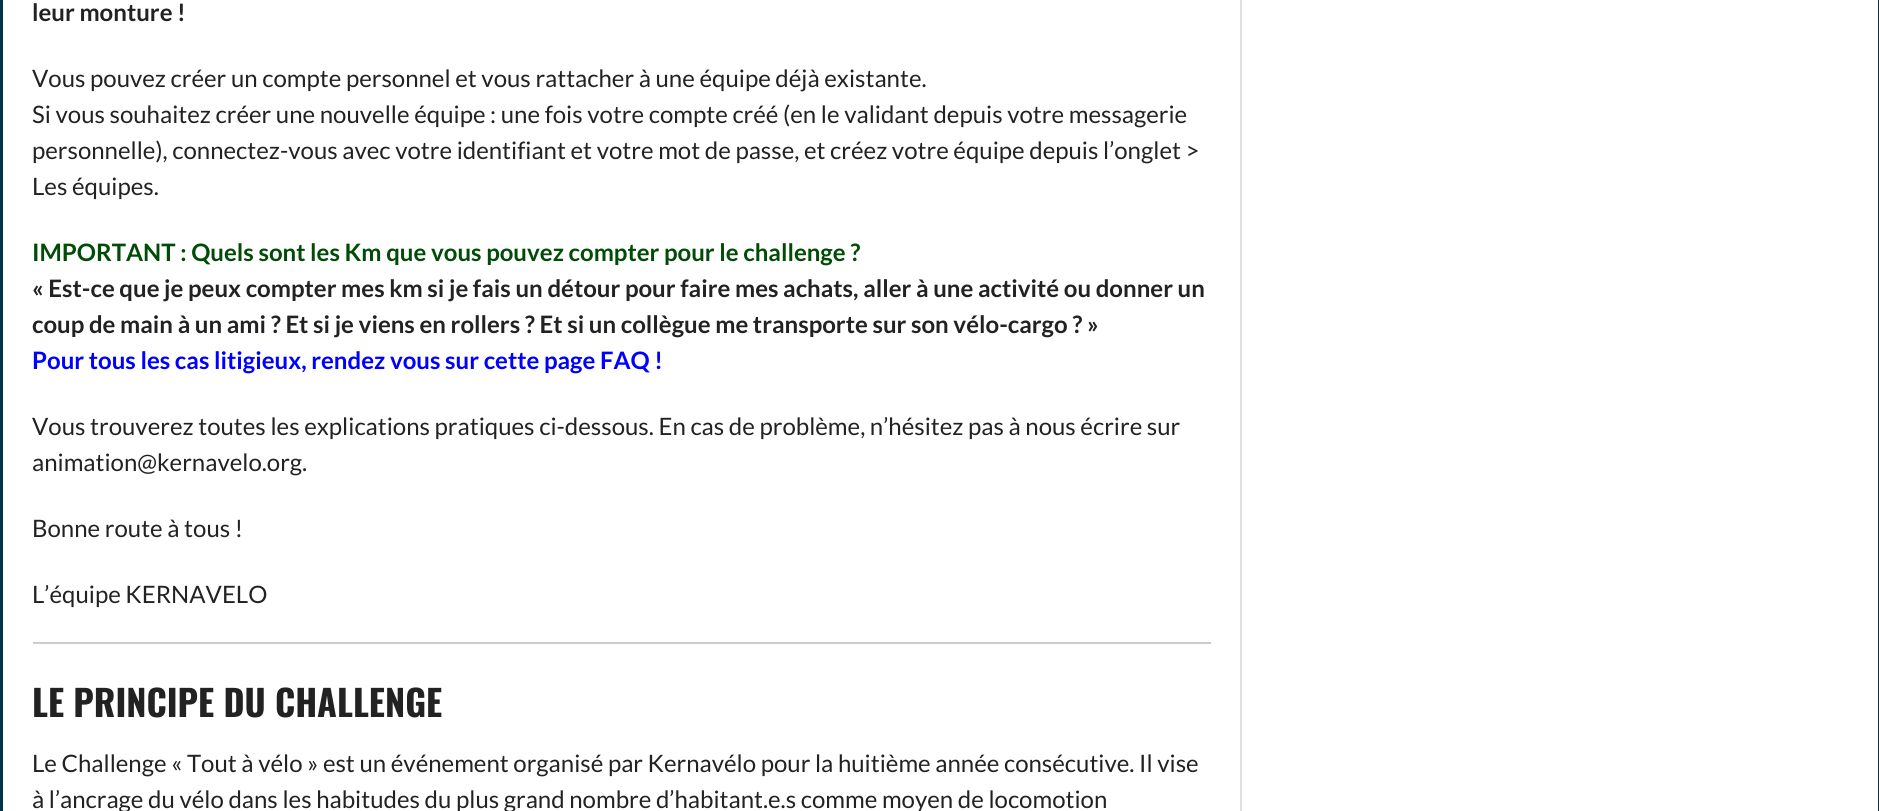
#include <cairo/cairo.h>
#include <math.h>
#include <stddef.h>

static cairo_t *cr;

static void use_color(int r, int g, int b) {
  cairo_set_source_rgb(cr, r / 255.0, g / 255.0, b / 255.0);
}

static void text(double x, double y, const char *s, const char *family, double size, int italic, int bold, int r, int g, int b) {
  cairo_select_font_face(cr, family, italic ? CAIRO_FONT_SLANT_ITALIC : CAIRO_FONT_SLANT_NORMAL,
    bold ? CAIRO_FONT_WEIGHT_BOLD : CAIRO_FONT_WEIGHT_NORMAL);
  cairo_set_font_size(cr, size);
  use_color(r, g, b);
  cairo_move_to(cr, x, y);
  cairo_show_text(cr, s);
}

static void box(double x, double y, double w, double h, int r, int g, int b) {
  use_color(r, g, b);
  cairo_rectangle(cr, x, y, w, h);
  cairo_fill(cr);
}

static void round_rect(double x, double y, double w, double h, double r) {
  cairo_new_sub_path(cr);
  cairo_arc(cr, x + w - r, y + h - r, r, 0, M_PI / 2);
  cairo_arc(cr, x + r, y + h - r, r, M_PI / 2, M_PI);
  cairo_arc(cr, x + r, y + r, r, M_PI, 1.5 * M_PI);
  cairo_arc(cr, x + w - r, y + r, r, 1.5 * M_PI, 2 * M_PI);
  cairo_close_path(cr);
}

static void shadow(double x, double y, double w, double h, double r, double blur, double alpha) {
  cairo_push_group_with_content(cr, CAIRO_CONTENT_ALPHA);
  cairo_set_operator(cr, CAIRO_OPERATOR_SOURCE);
  for (int i = 15; i >= -15 && fmin(w, h) + blur * i / 3 > 0; i -= 2) {
    double e = blur * i / 6;
    cairo_set_source_rgba(cr, 0, 0, 0, alpha * erfc((i - 1) / 8.5) / 2);
    round_rect(x - e, y - e, w + 2 * e, h + 2 * e, fmax(0, fmin(r + e + blur * .6, fmin(w, h) / 2 + e)));
    cairo_fill(cr);
  }
  cairo_pattern_t *soft = cairo_pop_group(cr);
  cairo_mask(cr, soft);
  cairo_pattern_destroy(soft);
}

static void draw(void) {
  use_color(2, 53, 74);
  cairo_paint(cr);
  use_color(0, 0, 0);
  shadow(3, -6, 1875, 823, 0, 2, 0.2);
  box(3, 0, 1875, 811, 255, 255, 255);
  box(1240, 0, 2, 811, 224, 224, 224);
  box(33, 642, 1178, 2, 204, 204, 204);
  text(32, 21, "leur monture !", "Lato", 24, 0, 1, 34, 34, 34);
  text(32, 87, "Vous pouvez créer un compte personnel et vous rattacher à une équipe déjà existante.", "Lato", 24, 0, 0, 34, 34, 34);
  text(32, 123, "Si vous souhaitez créer une nouvelle équipe : une fois votre compte créé (en le validant depuis votre messagerie", "Lato", 24, 0, 0, 34, 34, 34);
  text(32, 159, "personnelle), connectez-vous avec votre identifiant et votre mot de passe, et créez votre équipe depuis l’onglet >", "Lato", 24, 0, 0, 34, 34, 34);
  text(32, 195, "Les équipes.", "Lato", 24, 0, 0, 34, 34, 34);
  text(32, 261, "IMPORTANT : Quels sont les Km que vous pouvez compter pour le challenge ?", "Lato", 24, 0, 1, 0, 76, 6);
  text(32, 297, "« Est-ce que je peux compter mes km si je fais un détour pour faire mes achats, aller à une activité ou donner un", "Lato", 24, 0, 1, 34, 34, 34);
  text(32, 333, "coup de main à un ami ? Et si je viens en rollers ? Et si un collègue me transporte sur son vélo-cargo ? »", "Lato", 24, 0, 1, 34, 34, 34);
  text(32, 369, "Pour tous les cas litigieux, rendez vous sur cette page FAQ !", "Lato", 24, 0, 1, 0, 0, 255);
  text(32, 435, "Vous trouverez toutes les explications pratiques ci-dessous. En cas de problème, n’hésitez pas à nous écrire sur", "Lato", 24, 0, 0, 34, 34, 34);
  text(32, 471, "animation@kernavelo.org.", "Lato", 24, 0, 0, 34, 34, 34);
  text(32, 537, "Bonne route à tous !", "Lato", 24, 0, 0, 34, 34, 34);
  text(32, 603, "L’équipe KERNAVELO", "Lato", 24, 0, 0, 34, 34, 34);
  text(32, 717, "LE PRINCIPE DU CHALLENGE", "Oswald", 36, 0, 1, 34, 34, 34);
  text(32, 772, "Le Challenge « Tout à vélo » est un événement organisé par Kernavélo pour la huitième année consécutive. Il vise", "Lato", 24, 0, 0, 34, 34, 34);
  text(32, 808, "à l’ancrage du vélo dans les habitudes du plus grand nombre d’habitant.e.s comme moyen de locomotion", "Lato", 24, 0, 0, 34, 34, 34);
}

int main(void) {
  cairo_surface_t *surface = cairo_image_surface_create(CAIRO_FORMAT_RGB24, 1879, 811);
  cr = cairo_create(surface);
  cairo_font_options_t *options = cairo_font_options_create();
  cairo_font_options_set_hint_metrics(options, CAIRO_HINT_METRICS_OFF);
  cairo_font_options_set_hint_style(options, CAIRO_HINT_STYLE_NONE);
  cairo_set_font_options(cr, options);
  cairo_set_miter_limit(cr, 4);
  draw();
  cairo_surface_write_to_png(surface, "out.png");
  cairo_font_options_destroy(options);
  cairo_destroy(cr);
  cairo_surface_destroy(surface);
  return 0;
}
